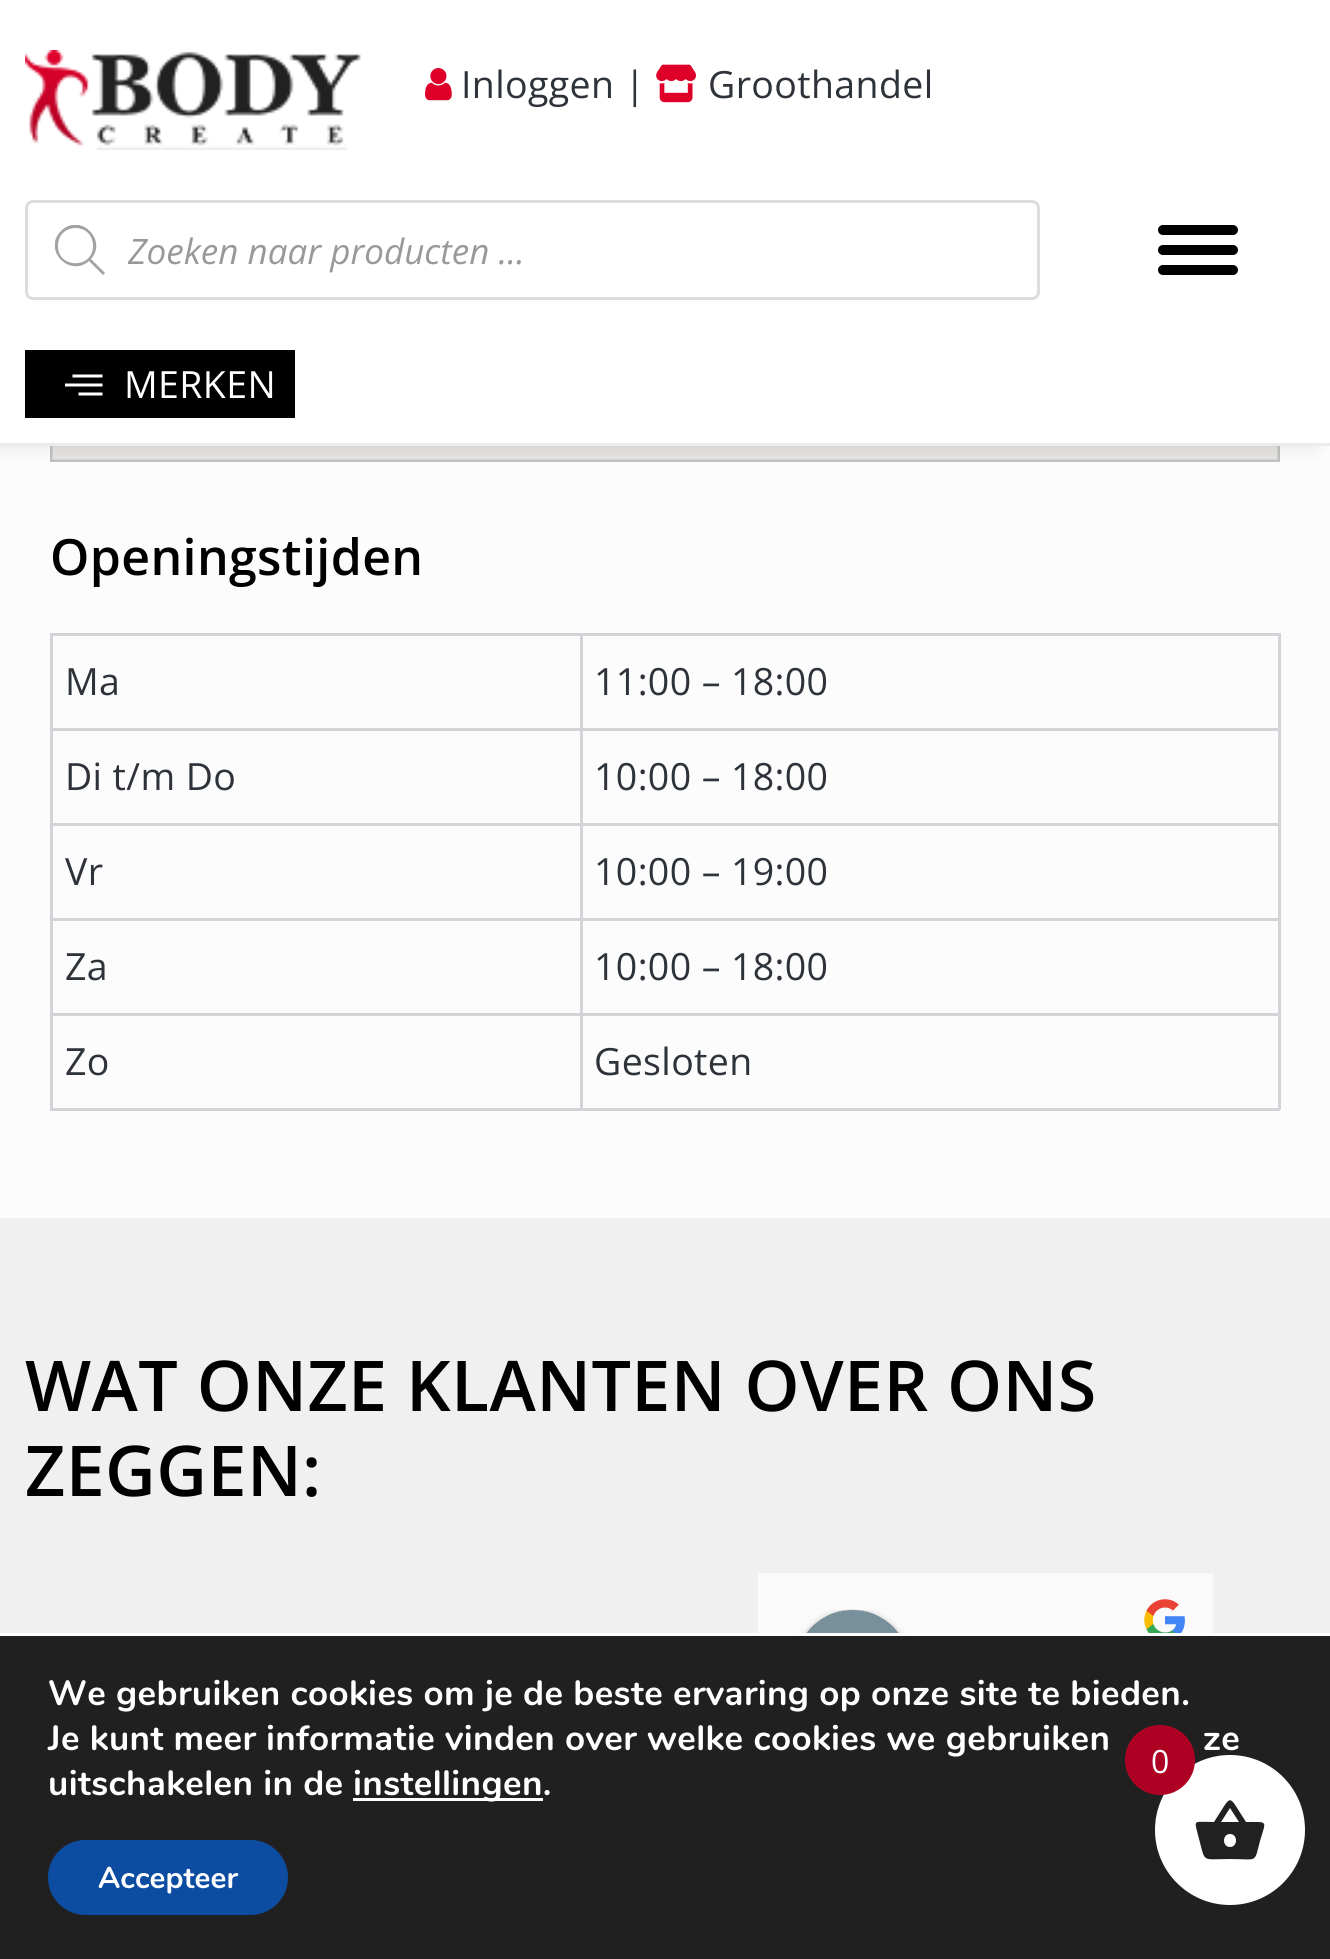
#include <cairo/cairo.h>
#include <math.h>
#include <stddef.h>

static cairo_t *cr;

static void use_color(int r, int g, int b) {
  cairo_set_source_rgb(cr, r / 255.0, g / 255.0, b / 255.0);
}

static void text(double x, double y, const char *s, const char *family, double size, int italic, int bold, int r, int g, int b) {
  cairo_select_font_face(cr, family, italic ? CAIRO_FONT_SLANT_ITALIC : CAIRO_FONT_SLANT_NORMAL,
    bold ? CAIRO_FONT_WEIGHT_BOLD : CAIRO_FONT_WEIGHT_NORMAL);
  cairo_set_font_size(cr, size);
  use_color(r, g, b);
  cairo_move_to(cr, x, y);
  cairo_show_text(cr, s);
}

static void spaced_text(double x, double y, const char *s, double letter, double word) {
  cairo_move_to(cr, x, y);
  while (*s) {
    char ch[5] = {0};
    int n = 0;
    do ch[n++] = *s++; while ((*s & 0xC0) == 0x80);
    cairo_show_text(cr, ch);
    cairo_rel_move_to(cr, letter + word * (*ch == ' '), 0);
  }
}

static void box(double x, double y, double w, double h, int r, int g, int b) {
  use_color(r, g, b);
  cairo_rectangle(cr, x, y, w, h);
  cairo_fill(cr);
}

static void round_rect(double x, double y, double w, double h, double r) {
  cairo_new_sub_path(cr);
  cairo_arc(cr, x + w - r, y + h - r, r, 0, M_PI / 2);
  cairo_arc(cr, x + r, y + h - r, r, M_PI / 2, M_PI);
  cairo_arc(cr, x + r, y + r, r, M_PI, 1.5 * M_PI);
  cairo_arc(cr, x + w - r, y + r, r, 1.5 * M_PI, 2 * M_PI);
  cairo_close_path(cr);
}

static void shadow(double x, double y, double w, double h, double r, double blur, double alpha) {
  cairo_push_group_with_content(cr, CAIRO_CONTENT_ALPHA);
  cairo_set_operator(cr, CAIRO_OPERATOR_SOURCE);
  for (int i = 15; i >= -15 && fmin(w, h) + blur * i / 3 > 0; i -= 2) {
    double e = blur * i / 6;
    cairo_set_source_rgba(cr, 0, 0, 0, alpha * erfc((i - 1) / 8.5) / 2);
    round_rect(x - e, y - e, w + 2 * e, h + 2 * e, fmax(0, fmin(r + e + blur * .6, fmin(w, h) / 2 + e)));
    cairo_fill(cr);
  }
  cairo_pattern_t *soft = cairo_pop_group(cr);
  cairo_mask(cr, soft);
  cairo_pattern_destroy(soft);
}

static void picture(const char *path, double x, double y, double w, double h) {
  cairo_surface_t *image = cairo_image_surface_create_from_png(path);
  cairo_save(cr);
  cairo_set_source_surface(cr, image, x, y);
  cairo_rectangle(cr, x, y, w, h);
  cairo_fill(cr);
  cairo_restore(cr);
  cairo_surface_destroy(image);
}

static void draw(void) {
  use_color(252, 252, 252);
  cairo_paint(cr);
  picture("img_04.png", 50, 446, 1230, 16);
  use_color(0, 0, 0);
  shadow(-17, 0, 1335, 450, 0, 7.5, 0.07);
  box(0, 0, 1330, 443, 255, 255, 255);
  box(0, 443, 1330, 3, 235, 235, 235);
  picture("img_01.png", 25, 50, 336, 100);
  picture("img_02.png", 425, 68, 27, 33);
  picture("img_03.png", 656, 64, 40, 39);
  round_rect(26.5, 201.5, 1012, 97, 6.5);
  use_color(221, 221, 221);
  cairo_set_line_width(cr, 3);
  cairo_stroke(cr);
  cairo_save(cr);
  cairo_rectangle(cr, 55, 225, 50, 50);
  cairo_clip(cr);
  use_color(162, 162, 162);
  cairo_new_path(cr);
  cairo_move_to(cr, 105, 273);
  cairo_line_to(cr, 91, 259);
  cairo_curve_to(cr, 108, 240, 80, 212, 61, 231);
  cairo_curve_to(cr, 42, 250, 70, 278, 89, 261);
  cairo_line_to(cr, 103, 275);
  cairo_close_path(cr);
  cairo_move_to(cr, 58, 246);
  cairo_curve_to(cr, 58, 222, 93, 222, 93, 246);
  cairo_curve_to(cr, 93, 269, 58, 269, 58, 246);
  cairo_close_path(cr);
  cairo_fill(cr);
  cairo_restore(cr);
  use_color(0, 0, 0);
  round_rect(1158, 225, 80, 10, 5);
  cairo_fill(cr);
  round_rect(1158, 245, 80, 10, 5);
  cairo_fill(cr);
  round_rect(1158, 265, 80, 10, 5);
  cairo_fill(cr);
  box(25, 350, 270, 68, 0, 0, 0);
  use_color(255, 255, 255);
  cairo_new_path(cr);
  cairo_move_to(cr, 65, 386.5);
  cairo_line_to(cr, 102.5, 386.5);
  cairo_line_to(cr, 102.5, 383.5);
  cairo_line_to(cr, 65, 383.5);
  cairo_close_path(cr);
  cairo_move_to(cr, 78.5, 395.5);
  cairo_line_to(cr, 102.5, 395.5);
  cairo_line_to(cr, 102.5, 392.5);
  cairo_line_to(cr, 78.5, 392.5);
  cairo_close_path(cr);
  cairo_move_to(cr, 72.5, 374.5);
  cairo_line_to(cr, 72.5, 377.5);
  cairo_line_to(cr, 102.5, 377.5);
  cairo_line_to(cr, 102.5, 374.5);
  cairo_close_path(cr);
  cairo_fill(cr);
  box(580, 633, 700, 3, 212, 212, 216);
  box(580, 728, 700, 3, 212, 212, 216);
  box(580, 823, 700, 3, 212, 212, 216);
  box(580, 918, 700, 3, 212, 212, 216);
  box(580, 1013, 700, 3, 212, 212, 216);
  box(1278, 1013, 3, 97, 212, 212, 216);
  box(580, 1108, 700, 3, 212, 212, 216);
  box(580, 1013, 3, 97, 212, 212, 216);
  box(50, 1013, 533, 3, 212, 212, 216);
  box(580, 918, 3, 97, 212, 212, 216);
  box(50, 918, 533, 3, 212, 212, 216);
  box(580, 823, 3, 97, 212, 212, 216);
  box(50, 823, 533, 3, 212, 212, 216);
  box(580, 728, 3, 97, 212, 212, 216);
  box(50, 728, 533, 3, 212, 212, 216);
  box(580, 633, 3, 97, 212, 212, 216);
  box(50, 633, 533, 3, 212, 212, 216);
  box(50, 1108, 533, 3, 212, 212, 216);
  box(50, 1013, 3, 97, 212, 212, 216);
  box(50, 918, 3, 97, 212, 212, 216);
  box(50, 823, 3, 97, 212, 212, 216);
  box(50, 728, 3, 97, 212, 212, 216);
  box(50, 633, 3, 97, 212, 212, 216);
  box(1278, 918, 3, 97, 212, 212, 216);
  box(1278, 823, 3, 97, 212, 212, 216);
  box(1278, 728, 3, 97, 212, 212, 216);
  box(1278, 633, 3, 97, 212, 212, 216);
  box(0, 1218, 1330, 415, 240, 240, 240);
  box(758, 1573, 455, 60, 250, 250, 250);
  cairo_save(cr);
  cairo_rectangle(cr, 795, 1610, 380, 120);
  cairo_clip(cr);
  use_color(0, 0, 0);
  shadow(795, 1615, 115, 115, 57.5, 5, 0.24);
  shadow(795, 1610, 115, 115, 57.5, 2.5, 0.12);
  cairo_restore(cr);
  picture("img_05.png", 806, 1609, 93, 24);
  picture("img_06.png", 1144, 1599, 41, 34);
  box(0, 1636, 1330, 323, 32, 32, 32);
  box(0, 1633, 1330, 3, 255, 255, 255);
  box(353, 1798, 190, 3, 255, 255, 255);
  use_color(12, 77, 162);
  round_rect(48, 1840, 240, 75, 37.5);
  cairo_fill(cr);
  use_color(255, 255, 255);
  cairo_arc(cr, 1230, 1830, 75, 0, 2 * M_PI);
  cairo_fill(cr);
  use_color(173, 0, 34);
  cairo_arc(cr, 1160, 1760, 35, 0, 2 * M_PI);
  cairo_fill(cr);
  use_color(33, 33, 33);
  cairo_new_path(cr);
  cairo_move_to(cr, 1230, 1847);
  cairo_curve_to(cr, 1238, 1847, 1238, 1834, 1230, 1834);
  cairo_curve_to(cr, 1222, 1834, 1222, 1847, 1230, 1847);
  cairo_close_path(cr);
  cairo_move_to(cr, 1221, 1822);
  cairo_line_to(cr, 1239, 1822);
  cairo_line_to(cr, 1230, 1808);
  cairo_close_path(cr);
  cairo_move_to(cr, 1246, 1822);
  cairo_curve_to(cr, 1269, 1822, 1266, 1820, 1260, 1841);
  cairo_curve_to(cr, 1254, 1864, 1258, 1859, 1230, 1859);
  cairo_curve_to(cr, 1200, 1859, 1206, 1864, 1198, 1835);
  cairo_curve_to(cr, 1194, 1819, 1193, 1822, 1214, 1822);
  cairo_curve_to(cr, 1233, 1793, 1227, 1793, 1246, 1822);
  cairo_close_path(cr);
  cairo_fill(cr);
  cairo_select_font_face(cr, "Open Sans", CAIRO_FONT_SLANT_NORMAL, CAIRO_FONT_WEIGHT_NORMAL);
  cairo_set_font_size(cr, 37.5);
  use_color(46, 51, 58);
  spaced_text(461, 98, "Inloggen |", 0.38, 0);
  spaced_text(708, 98, "Groothandel", 0.38, 0);
  cairo_save(cr);
  cairo_rectangle(cr, 128, 228, 872, 47);
  cairo_clip(cr);
  text(128, 264, "Zoeken naar producten ...", "Open Sans", 35, 1, 0, 153, 153, 153);
  cairo_restore(cr);
  use_color(255, 255, 255);
  spaced_text(124, 398, "MERKEN", 0.38, 0);
  cairo_select_font_face(cr, "Open Sans SemiBold", CAIRO_FONT_SLANT_NORMAL, CAIRO_FONT_WEIGHT_NORMAL);
  cairo_set_font_size(cr, 50);
  use_color(0, 0, 0);
  spaced_text(50, 575, "Openingstijden", 0.38, 0);
  cairo_select_font_face(cr, "Open Sans", CAIRO_FONT_SLANT_NORMAL, CAIRO_FONT_WEIGHT_NORMAL);
  cairo_set_font_size(cr, 37.5);
  use_color(46, 51, 58);
  spaced_text(65, 695, "Ma", 0.38, 0);
  spaced_text(594, 695, "11:00 – 18:00", 0.38, 0);
  spaced_text(65, 790, "Di t/m Do", 0.38, 0);
  spaced_text(594, 790, "10:00 – 18:00", 0.38, 0);
  spaced_text(65, 885, "Vr", 0.38, 0);
  spaced_text(594, 885, "10:00 – 19:00", 0.38, 0);
  spaced_text(65, 980, "Za", 0.38, 0);
  spaced_text(594, 980, "10:00 – 18:00", 0.38, 0);
  spaced_text(65, 1075, "Zo", 0.38, 0);
  spaced_text(594, 1075, "Gesloten", 0.38, 0);
  cairo_select_font_face(cr, "Open Sans SemiBold", CAIRO_FONT_SLANT_NORMAL, CAIRO_FONT_WEIGHT_NORMAL);
  cairo_set_font_size(cr, 70);
  use_color(0, 0, 0);
  spaced_text(25, 1411, "WAT ONZE KLANTEN OVER ONS", 0.38, 0);
  spaced_text(25, 1496, "ZEGGEN:", 0.38, 0);
  cairo_select_font_face(cr, "Nunito", CAIRO_FONT_SLANT_NORMAL, CAIRO_FONT_WEIGHT_BOLD);
  cairo_set_font_size(cr, 35);
  use_color(255, 255, 255);
  spaced_text(48, 1705, "We gebruiken cookies om je de beste ervaring op onze site te bieden.", 0.38, 0);
  spaced_text(48, 1750, "Je kunt meer informatie vinden over welke cookies we gebruiken", 0.38, 0);
  spaced_text(1203, 1750, "ze", 0.38, 0);
  spaced_text(48, 1795, "uitschakelen in de", 0.38, 0);
  spaced_text(353, 1795, "instellingen.", 0.38, 0);
  text(98, 1888, "Accepteer", "Nunito", 30, 0, 1, 255, 255, 255);
  cairo_select_font_face(cr, "Open Sans", CAIRO_FONT_SLANT_NORMAL, CAIRO_FONT_WEIGHT_NORMAL);
  cairo_set_font_size(cr, 32);
  spaced_text(1151, 1773, "0", 0.38, 0);
}

int main(void) {
  cairo_surface_t *surface = cairo_image_surface_create(CAIRO_FORMAT_RGB24, 1330, 1959);
  cr = cairo_create(surface);
  cairo_font_options_t *options = cairo_font_options_create();
  cairo_font_options_set_hint_metrics(options, CAIRO_HINT_METRICS_OFF);
  cairo_font_options_set_hint_style(options, CAIRO_HINT_STYLE_NONE);
  cairo_set_font_options(cr, options);
  cairo_set_miter_limit(cr, 4);
  draw();
  cairo_surface_write_to_png(surface, "out.png");
  cairo_font_options_destroy(options);
  cairo_destroy(cr);
  cairo_surface_destroy(surface);
  return 0;
}
